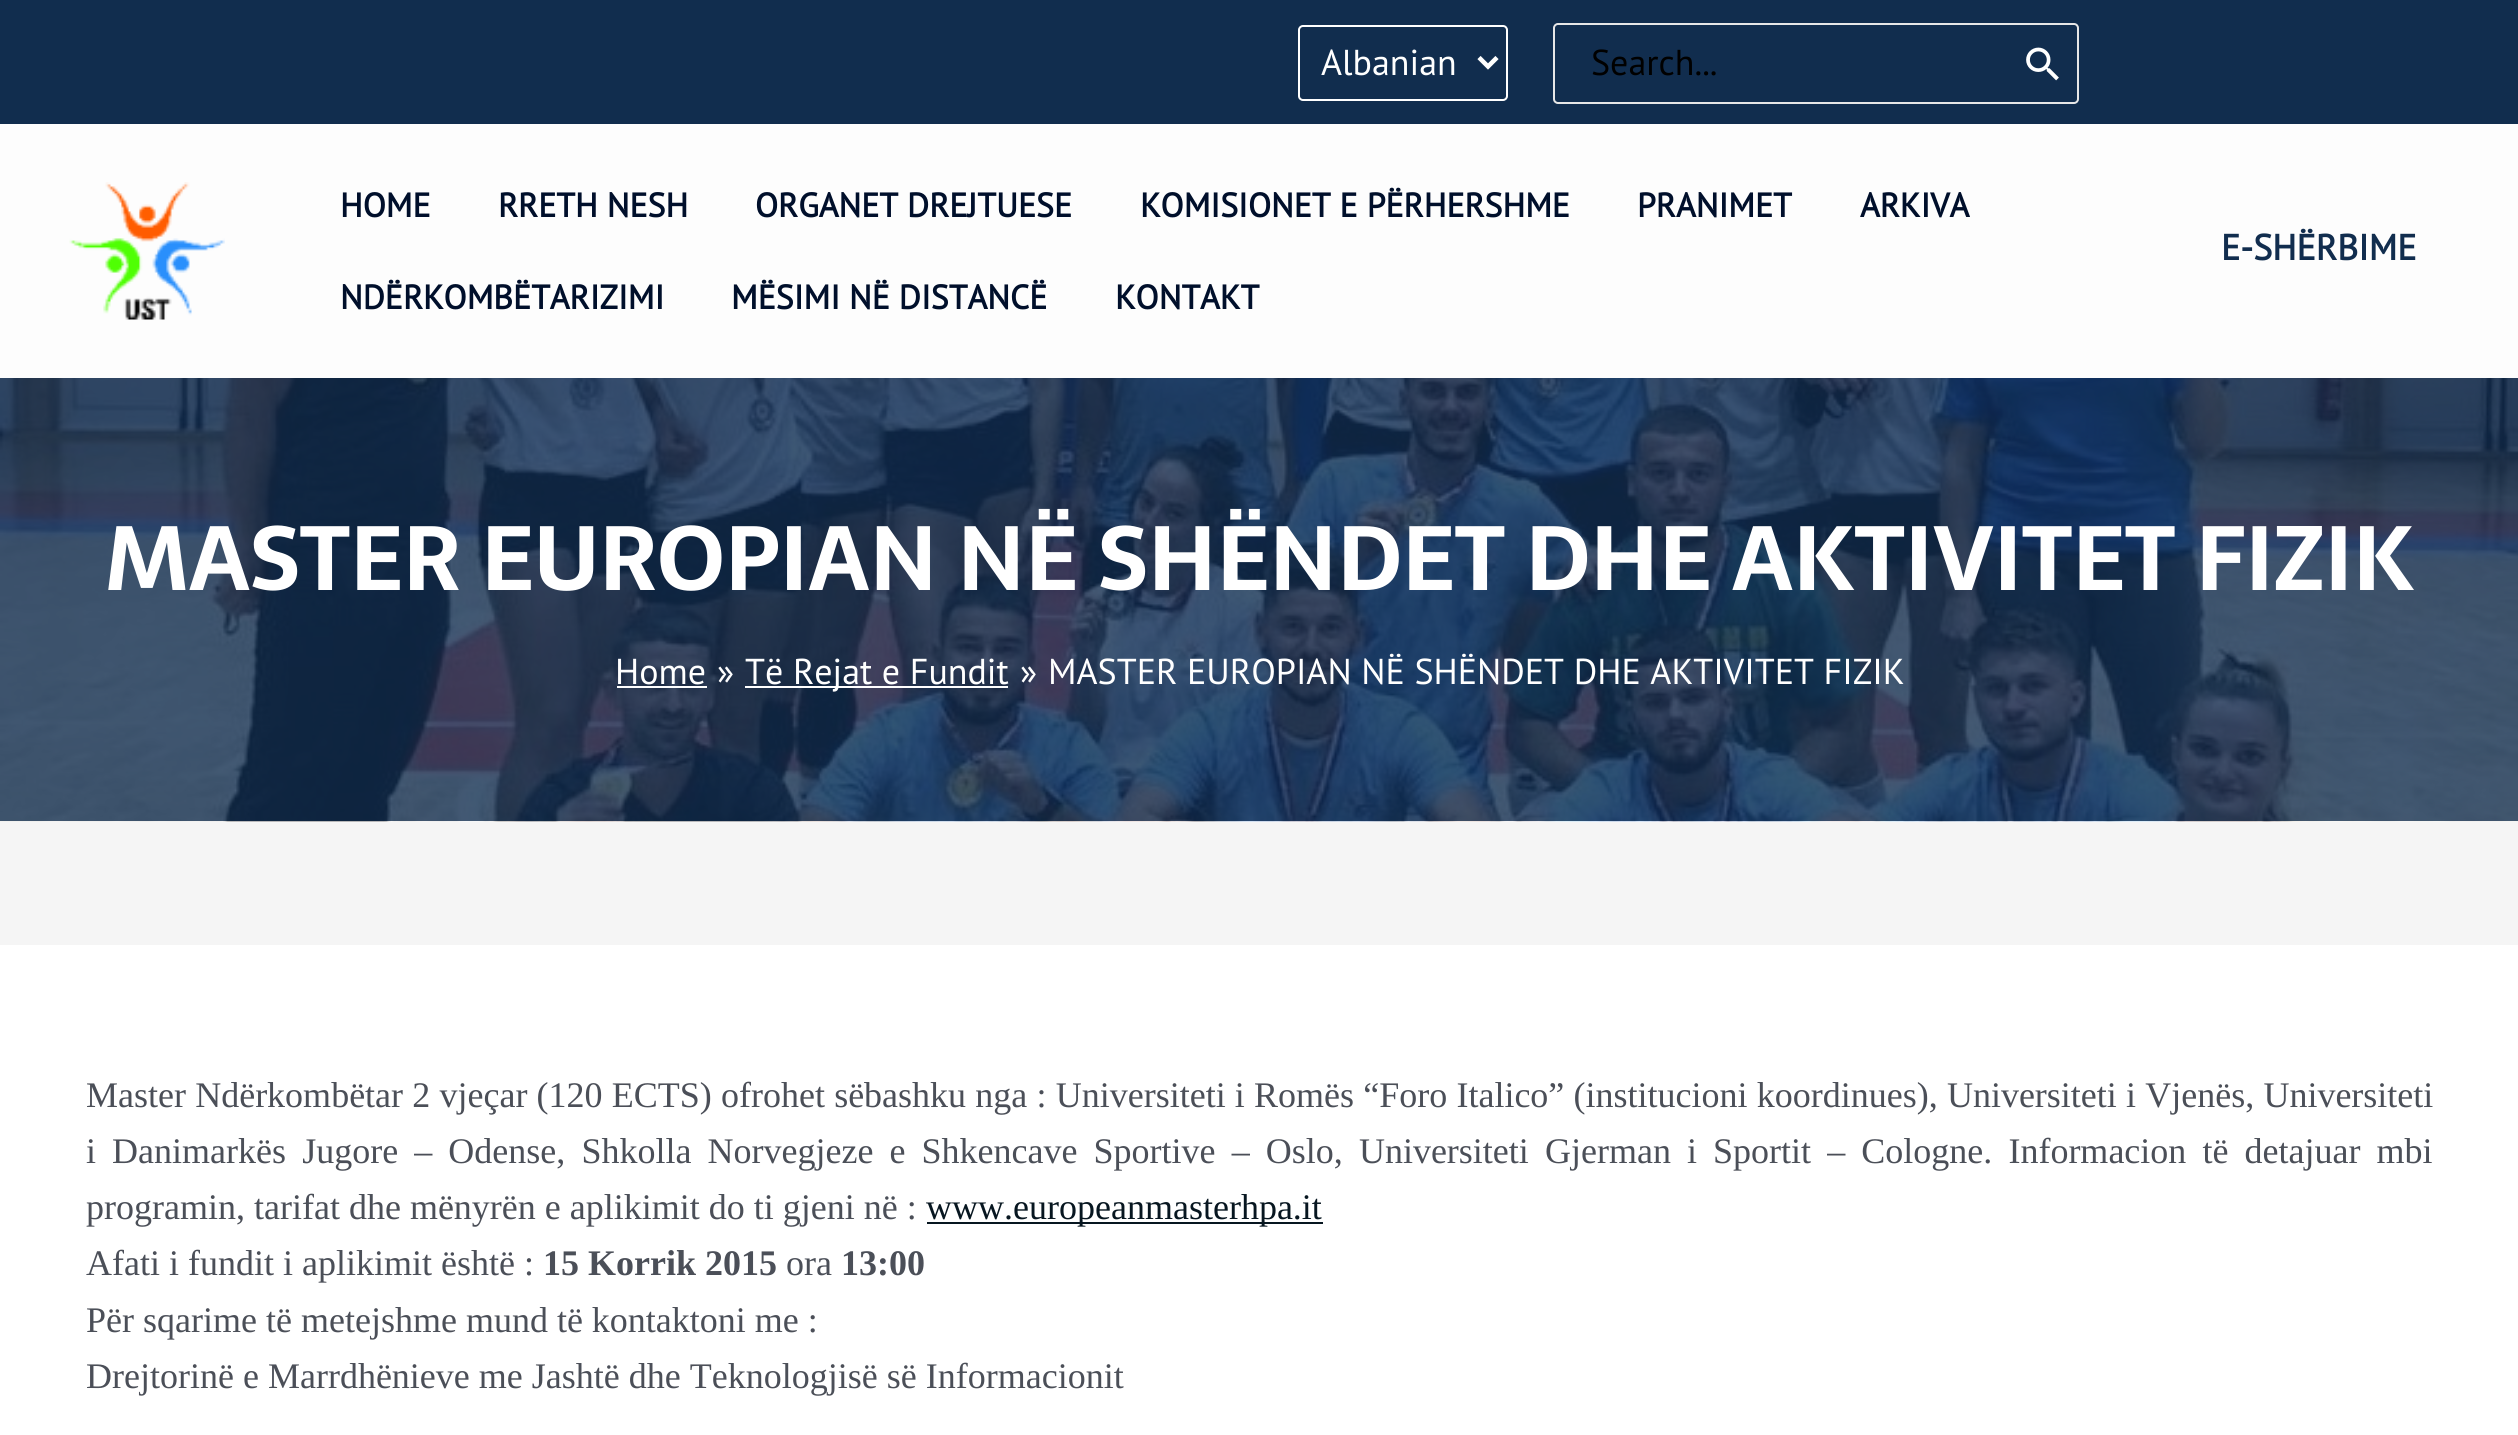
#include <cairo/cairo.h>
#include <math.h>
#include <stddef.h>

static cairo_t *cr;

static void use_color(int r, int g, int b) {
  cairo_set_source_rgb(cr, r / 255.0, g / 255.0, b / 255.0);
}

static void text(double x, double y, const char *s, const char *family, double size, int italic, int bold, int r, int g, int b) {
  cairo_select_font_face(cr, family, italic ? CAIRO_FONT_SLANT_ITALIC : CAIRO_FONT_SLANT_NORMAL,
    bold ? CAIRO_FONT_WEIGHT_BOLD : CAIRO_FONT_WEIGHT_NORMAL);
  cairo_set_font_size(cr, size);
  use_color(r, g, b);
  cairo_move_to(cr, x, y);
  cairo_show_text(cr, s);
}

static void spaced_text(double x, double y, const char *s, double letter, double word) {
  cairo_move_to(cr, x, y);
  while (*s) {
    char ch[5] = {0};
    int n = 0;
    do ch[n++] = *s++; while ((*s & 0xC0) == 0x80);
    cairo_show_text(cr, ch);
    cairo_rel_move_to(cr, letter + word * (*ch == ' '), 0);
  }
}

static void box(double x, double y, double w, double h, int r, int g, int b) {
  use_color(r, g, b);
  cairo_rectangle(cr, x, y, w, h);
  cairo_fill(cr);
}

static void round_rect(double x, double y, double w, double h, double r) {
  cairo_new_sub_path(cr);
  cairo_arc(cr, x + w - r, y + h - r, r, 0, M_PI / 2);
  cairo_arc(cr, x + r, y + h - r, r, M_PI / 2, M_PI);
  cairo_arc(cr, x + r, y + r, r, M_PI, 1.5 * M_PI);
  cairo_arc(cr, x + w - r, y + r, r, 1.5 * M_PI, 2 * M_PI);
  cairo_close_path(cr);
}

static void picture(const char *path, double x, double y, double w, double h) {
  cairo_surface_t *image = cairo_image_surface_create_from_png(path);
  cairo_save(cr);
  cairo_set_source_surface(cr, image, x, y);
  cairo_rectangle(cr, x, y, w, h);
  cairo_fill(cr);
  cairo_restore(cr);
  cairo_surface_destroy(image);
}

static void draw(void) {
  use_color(245, 245, 245);
  cairo_paint(cr);
  box(0, 0, 2518, 124, 17, 45, 78);
  round_rect(1299, 26, 208, 74, 4);
  use_color(255, 255, 255);
  cairo_stroke(cr);
  cairo_new_path(cr);
  cairo_move_to(cr, 1479, 57.5);
  cairo_line_to(cr, 1488, 66.5);
  cairo_line_to(cr, 1497, 57.5);
  cairo_set_line_width(cr, 4.5);
  cairo_stroke(cr);
  round_rect(1554, 24, 524, 79, 4);
  use_color(231, 231, 231);
  cairo_set_line_width(cr, 2);
  cairo_stroke(cr);
  picture("img_01.png", 2026, 47, 33, 34);
  box(0, 124, 2518, 254, 253, 253, 253);
  picture("img_02.png", 69, 182, 156, 138);
  picture("img_03.png", 0, 378, 2518, 444);
  box(617, 686, 90, 2, 255, 255, 255);
  box(745, 686, 263, 2, 255, 255, 255);
  box(0, 945, 2518, 490, 255, 255, 255);
  box(927, 1222, 396, 2, 7, 22, 32);
  text(1321, 75, "Albanian", "PT Sans", 36, 0, 0, 255, 255, 255);
  text(1591, 75, "Search...", "PT Sans", 36, 0, 0, 0, 0, 0);
  text(340, 217, "HOME", "PT Sans", 33.75, 0, 1, 0, 15, 43);
  text(498, 217, "RRETH NESH", "PT Sans", 33.75, 0, 1, 0, 15, 43);
  text(755, 217, "ORGANET DREJTUESE", "PT Sans", 33.75, 0, 1, 0, 15, 43);
  text(1140, 217, "KOMISIONET E PËRHERSHME", "PT Sans", 33.75, 0, 1, 0, 15, 43);
  text(1637, 217, "PRANIMET", "PT Sans", 33.75, 0, 1, 0, 15, 43);
  text(1860, 217, "ARKIVA", "PT Sans", 33.75, 0, 1, 0, 15, 43);
  text(340, 309, "NDËRKOMBËTARIZIMI", "PT Sans", 33.75, 0, 1, 0, 15, 43);
  text(731, 309, "MËSIMI NË DISTANCË", "PT Sans", 33.75, 0, 1, 0, 15, 43);
  text(1115, 309, "KONTAKT", "PT Sans", 33.75, 0, 1, 0, 15, 43);
  text(2221, 260, "E-SHËRBIME", "PT Sans", 36, 0, 1, 17, 45, 78);
  text(105, 590, "MASTER EUROPIAN NË SHËNDET DHE AKTIVITET FIZIK", "Sarala", 90, 0, 1, 255, 255, 255);
  text(615, 684, "Home", "PT Sans", 36, 0, 0, 255, 255, 255);
  text(717, 684, "»", "PT Sans", 36, 0, 0, 255, 255, 255);
  text(745, 684, "Të Rejat e Fundit", "PT Sans", 36, 0, 0, 255, 255, 255);
  text(1020, 684, "»", "PT Sans", 36, 0, 0, 255, 255, 255);
  text(1048, 684, "MASTER EUROPIAN NË SHËNDET DHE AKTIVITET FIZIK", "PT Sans", 36, 0, 0, 255, 255, 255);
  cairo_select_font_face(cr, "Liberation Serif", CAIRO_FONT_SLANT_NORMAL, CAIRO_FONT_WEIGHT_NORMAL);
  use_color(75, 79, 88);
  spaced_text(86, 1107, "Master Ndërkombëtar 2 vjeçar (120 ECTS) ofrohet sëbashku nga : Universiteti i Romës “Foro Italico” (institucioni koordinues), Universiteti i Vjenës, Universiteti", 0, 0.2);
  spaced_text(86, 1163, "i Danimarkës Jugore – Odense, Shkolla Norvegjeze e Shkencave Sportive – Oslo, Universiteti Gjerman i Sportit – Cologne. Informacion të detajuar mbi", 0, 7.1);
  text(86, 1219, "programin, tarifat dhe mënyrën e aplikimit do ti gjeni në :", "Liberation Serif", 36, 0, 0, 75, 79, 88);
  text(926, 1219, "www.europeanmasterhpa.it", "Liberation Serif", 36, 0, 0, 7, 22, 32);
  text(86, 1275, "Afati i fundit i aplikimit është :", "Liberation Serif", 36, 0, 0, 75, 79, 88);
  text(543, 1275, "15 Korrik 2015", "Liberation Serif", 36, 0, 1, 75, 79, 88);
  text(786, 1275, "ora", "Liberation Serif", 36, 0, 0, 75, 79, 88);
  text(841, 1275, "13:00", "Liberation Serif", 36, 0, 1, 75, 79, 88);
  text(86, 1332, "Për sqarime të metejshme mund të kontaktoni me :", "Liberation Serif", 36, 0, 0, 75, 79, 88);
  text(86, 1388, "Drejtorinë e Marrdhënieve me Jashtë dhe Teknologjisë së Informacionit", "Liberation Serif", 36, 0, 0, 75, 79, 88);
}

int main(void) {
  cairo_surface_t *surface = cairo_image_surface_create(CAIRO_FORMAT_RGB24, 2518, 1435);
  cr = cairo_create(surface);
  cairo_font_options_t *options = cairo_font_options_create();
  cairo_font_options_set_hint_metrics(options, CAIRO_HINT_METRICS_OFF);
  cairo_font_options_set_hint_style(options, CAIRO_HINT_STYLE_NONE);
  cairo_set_font_options(cr, options);
  cairo_set_miter_limit(cr, 4);
  draw();
  cairo_surface_write_to_png(surface, "out.png");
  cairo_font_options_destroy(options);
  cairo_destroy(cr);
  cairo_surface_destroy(surface);
  return 0;
}
